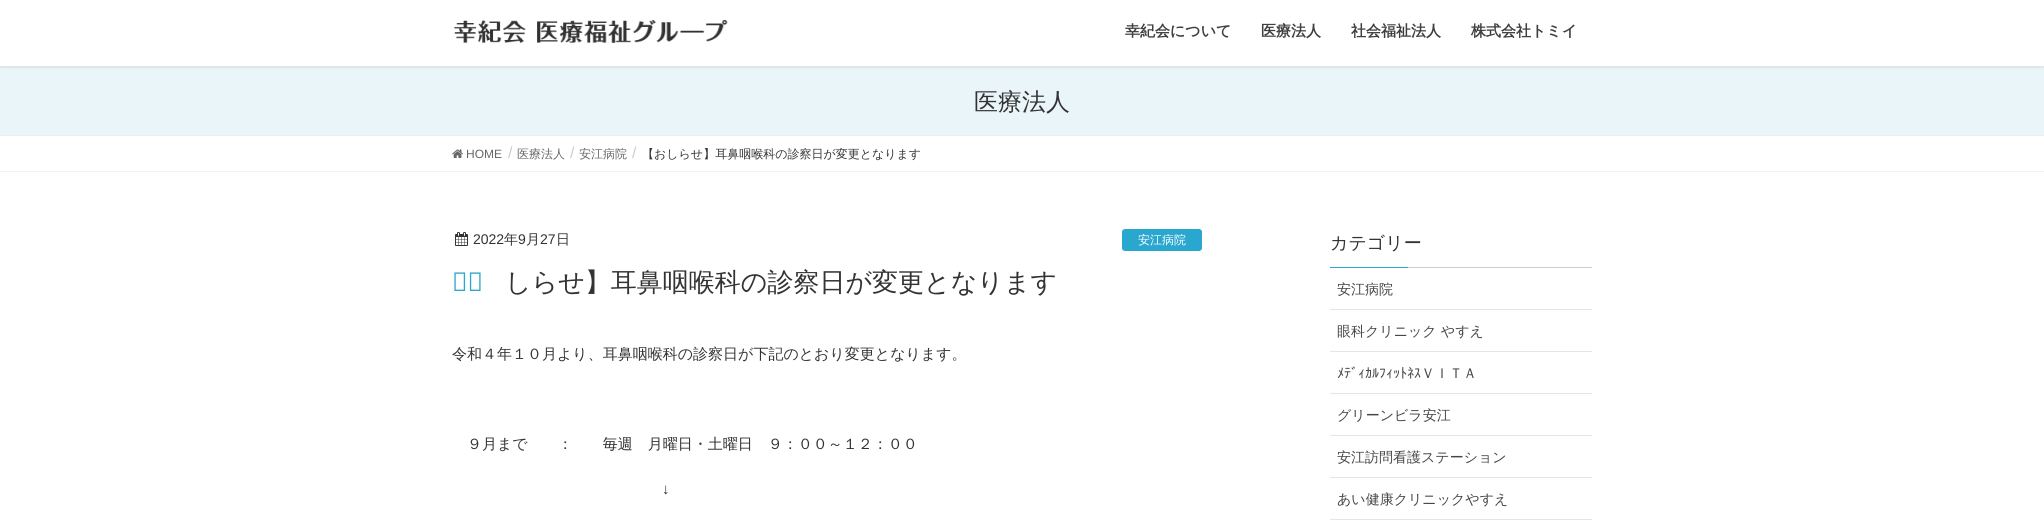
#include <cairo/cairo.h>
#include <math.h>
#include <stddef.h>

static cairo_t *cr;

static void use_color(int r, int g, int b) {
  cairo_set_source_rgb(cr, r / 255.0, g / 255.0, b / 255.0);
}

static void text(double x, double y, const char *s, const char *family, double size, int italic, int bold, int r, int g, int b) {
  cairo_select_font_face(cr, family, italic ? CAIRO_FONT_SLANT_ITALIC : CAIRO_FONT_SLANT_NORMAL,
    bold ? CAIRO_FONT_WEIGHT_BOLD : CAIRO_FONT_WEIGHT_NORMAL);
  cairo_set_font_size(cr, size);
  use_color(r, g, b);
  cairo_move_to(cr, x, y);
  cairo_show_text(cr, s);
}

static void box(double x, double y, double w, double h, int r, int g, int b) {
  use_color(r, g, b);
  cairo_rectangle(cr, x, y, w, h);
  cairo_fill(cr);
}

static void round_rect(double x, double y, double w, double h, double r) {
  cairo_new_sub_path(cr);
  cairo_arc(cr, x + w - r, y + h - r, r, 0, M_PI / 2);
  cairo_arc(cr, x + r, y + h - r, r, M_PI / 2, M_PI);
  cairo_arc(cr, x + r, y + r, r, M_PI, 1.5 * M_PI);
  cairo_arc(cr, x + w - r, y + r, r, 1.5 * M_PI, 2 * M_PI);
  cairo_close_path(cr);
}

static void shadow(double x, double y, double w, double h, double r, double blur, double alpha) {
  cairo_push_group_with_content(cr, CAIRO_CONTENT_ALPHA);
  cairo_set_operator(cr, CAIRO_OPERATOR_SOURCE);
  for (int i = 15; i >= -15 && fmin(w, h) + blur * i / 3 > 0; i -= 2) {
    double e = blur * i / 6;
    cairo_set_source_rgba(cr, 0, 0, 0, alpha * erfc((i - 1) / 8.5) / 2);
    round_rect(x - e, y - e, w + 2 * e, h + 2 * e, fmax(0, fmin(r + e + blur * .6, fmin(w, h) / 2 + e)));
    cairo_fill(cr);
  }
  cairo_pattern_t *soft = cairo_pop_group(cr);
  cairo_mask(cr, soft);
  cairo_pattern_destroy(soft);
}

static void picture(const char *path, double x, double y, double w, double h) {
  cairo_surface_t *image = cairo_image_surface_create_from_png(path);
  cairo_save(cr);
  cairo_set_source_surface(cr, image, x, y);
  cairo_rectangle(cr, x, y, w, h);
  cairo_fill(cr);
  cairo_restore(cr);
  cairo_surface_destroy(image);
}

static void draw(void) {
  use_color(255, 255, 255);
  cairo_paint(cr);
  box(0, 66, 2044, 69, 233, 245, 249);
  use_color(0, 0, 0);
  shadow(0, 1, 2044, 66, 0, 1.5, 0.1);
  box(0, 0, 2044, 66, 255, 255, 255);
  picture("img_01.png", 454, 20, 274, 23);
  box(0, 135, 2044, 1, 238, 238, 238);
  box(0, 171, 2044, 1, 243, 243, 243);
  picture("img_02.png", 452, 149, 11, 9);
  picture("img_03.png", 455, 232, 13, 14);
  use_color(41, 167, 206);
  round_rect(1122.5, 229.5, 79, 21, 2.5);
  cairo_fill_preserve(cr);
  cairo_set_line_width(cr, 1);
  cairo_stroke(cr);
  box(1408, 267, 184, 1, 204, 204, 204);
  box(1330, 267, 78, 1, 41, 167, 206);
  box(1330, 309, 262, 1, 229, 229, 229);
  box(1330, 351, 262, 1, 229, 229, 229);
  box(1330, 393, 262, 1, 229, 229, 229);
  box(1330, 435, 262, 1, 229, 229, 229);
  box(1330, 477, 262, 1, 229, 229, 229);
  box(1330, 519, 262, 1, 229, 229, 229);
  text(1125, 36, "幸紀会について", "WenQuanYi Zen Hei", 15, 0, 1, 63, 63, 63);
  text(1261, 36, "医療法人", "WenQuanYi Zen Hei", 15, 0, 1, 63, 63, 63);
  text(1351, 36, "社会福祉法人", "WenQuanYi Zen Hei", 15, 0, 1, 63, 63, 63);
  text(1471, 36, "株式会社トミイ", "WenQuanYi Zen Hei", 15, 0, 1, 63, 63, 63);
  text(974, 110, "医療法人", "WenQuanYi Zen Hei Medium", 24, 0, 0, 51, 51, 51);
  text(466, 158, "HOME", "Liberation Sans", 12, 0, 0, 102, 102, 102);
  text(508, 158, "/", "Liberation Sans", 16, 0, 0, 204, 204, 204);
  text(517, 158, "医療法人", "WenQuanYi Zen Hei Medium", 12, 0, 0, 102, 102, 102);
  text(570, 158, "/", "Liberation Sans", 16, 0, 0, 204, 204, 204);
  text(579, 158, "安江病院", "WenQuanYi Zen Hei Medium", 12, 0, 0, 102, 102, 102);
  text(632, 158, "/", "Liberation Sans", 16, 0, 0, 204, 204, 204);
  text(642, 158, "【おしらせ】耳鼻咽喉科の診察日が変更となります", "WenQuanYi Zen Hei Medium", 12, 0, 0, 51, 51, 51);
  text(473, 244, "2022", "Liberation Sans", 14, 0, 0, 51, 51, 51);
  text(504, 244, "年", "WenQuanYi Zen Hei Medium", 14, 0, 0, 51, 51, 51);
  text(518, 244, "9", "Liberation Sans", 14, 0, 0, 51, 51, 51);
  text(526, 244, "月", "WenQuanYi Zen Hei Medium", 14, 0, 0, 51, 51, 51);
  text(540, 244, "27", "Liberation Sans", 14, 0, 0, 51, 51, 51);
  text(556, 244, "日", "WenQuanYi Zen Hei Medium", 14, 0, 0, 51, 51, 51);
  text(1138, 244, "安江病院", "WenQuanYi Zen Hei Medium", 12, 0, 0, 255, 255, 255);
  text(452, 291, "【お", "Noto Sans Medium", 26, 0, 0, 41, 167, 206);
  text(505, 291, "しらせ】耳鼻咽喉科の診察日が変更となります", "WenQuanYi Zen Hei Medium", 26, 0, 0, 51, 51, 51);
  text(452, 359, "令和４年１０月より、耳鼻咽喉科の診察日が下記のとおり変更となります。", "WenQuanYi Zen Hei Medium", 15, 0, 0, 51, 51, 51);
  text(467, 449, "９月まで　　：　　毎週　月曜日・土曜日　９：００～１２：００", "WenQuanYi Zen Hei Medium", 15, 0, 0, 51, 51, 51);
  text(662, 494, "↓", "Liberation Sans", 15, 0, 0, 51, 51, 51);
  text(1330, 249, "カテゴリー", "WenQuanYi Zen Hei Medium", 18, 0, 0, 51, 51, 51);
  text(1337, 294, "安江病院", "WenQuanYi Zen Hei Medium", 14, 0, 0, 70, 70, 70);
  text(1337, 336, "眼科クリニック やすえ", "WenQuanYi Zen Hei Medium", 14, 0, 0, 70, 70, 70);
  text(1337, 378, "ﾒﾃﾞｨｶﾙﾌｨｯﾄﾈｽ", "IPAPGothic", 14, 0, 0, 70, 70, 70);
  text(1421, 378, "ＶＩＴＡ", "WenQuanYi Zen Hei Medium", 14, 0, 0, 70, 70, 70);
  text(1337, 420, "グリーンビラ安江", "WenQuanYi Zen Hei Medium", 14, 0, 0, 70, 70, 70);
  text(1337, 462, "安江訪問看護ステーション", "WenQuanYi Zen Hei Medium", 14, 0, 0, 70, 70, 70);
  text(1337, 504, "あい健康クリニックやすえ", "WenQuanYi Zen Hei Medium", 14, 0, 0, 70, 70, 70);
}

int main(void) {
  cairo_surface_t *surface = cairo_image_surface_create(CAIRO_FORMAT_RGB24, 2044, 527);
  cr = cairo_create(surface);
  cairo_font_options_t *options = cairo_font_options_create();
  cairo_font_options_set_hint_metrics(options, CAIRO_HINT_METRICS_OFF);
  cairo_font_options_set_hint_style(options, CAIRO_HINT_STYLE_NONE);
  cairo_set_font_options(cr, options);
  cairo_set_miter_limit(cr, 4);
  draw();
  cairo_surface_write_to_png(surface, "out.png");
  cairo_font_options_destroy(options);
  cairo_destroy(cr);
  cairo_surface_destroy(surface);
  return 0;
}
